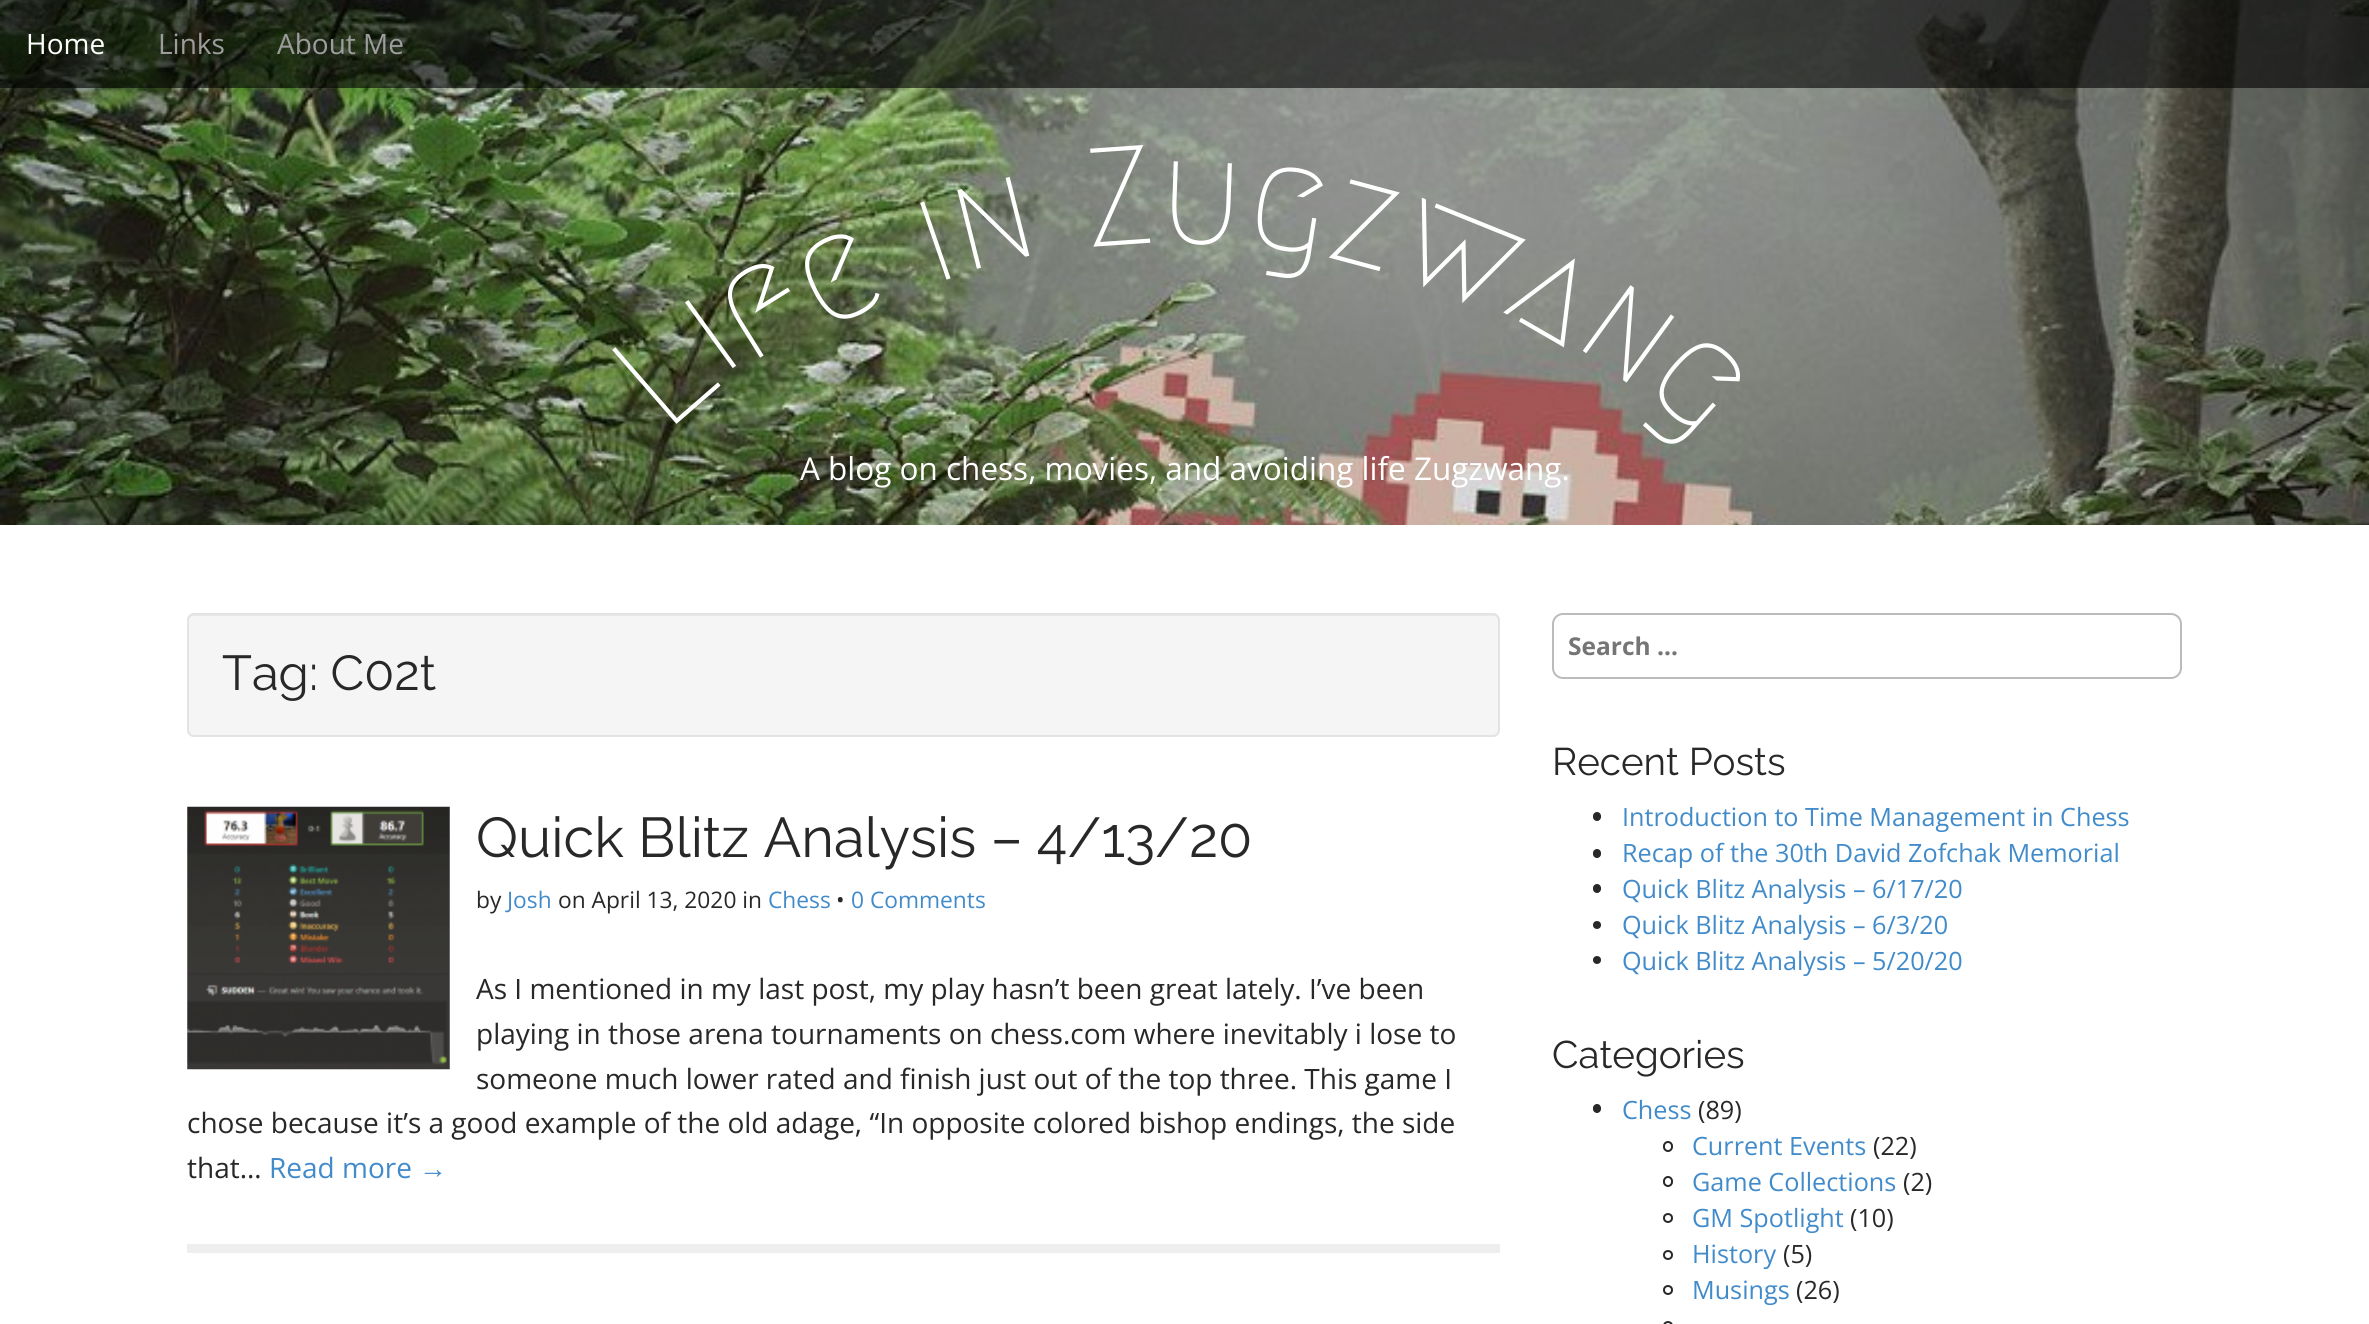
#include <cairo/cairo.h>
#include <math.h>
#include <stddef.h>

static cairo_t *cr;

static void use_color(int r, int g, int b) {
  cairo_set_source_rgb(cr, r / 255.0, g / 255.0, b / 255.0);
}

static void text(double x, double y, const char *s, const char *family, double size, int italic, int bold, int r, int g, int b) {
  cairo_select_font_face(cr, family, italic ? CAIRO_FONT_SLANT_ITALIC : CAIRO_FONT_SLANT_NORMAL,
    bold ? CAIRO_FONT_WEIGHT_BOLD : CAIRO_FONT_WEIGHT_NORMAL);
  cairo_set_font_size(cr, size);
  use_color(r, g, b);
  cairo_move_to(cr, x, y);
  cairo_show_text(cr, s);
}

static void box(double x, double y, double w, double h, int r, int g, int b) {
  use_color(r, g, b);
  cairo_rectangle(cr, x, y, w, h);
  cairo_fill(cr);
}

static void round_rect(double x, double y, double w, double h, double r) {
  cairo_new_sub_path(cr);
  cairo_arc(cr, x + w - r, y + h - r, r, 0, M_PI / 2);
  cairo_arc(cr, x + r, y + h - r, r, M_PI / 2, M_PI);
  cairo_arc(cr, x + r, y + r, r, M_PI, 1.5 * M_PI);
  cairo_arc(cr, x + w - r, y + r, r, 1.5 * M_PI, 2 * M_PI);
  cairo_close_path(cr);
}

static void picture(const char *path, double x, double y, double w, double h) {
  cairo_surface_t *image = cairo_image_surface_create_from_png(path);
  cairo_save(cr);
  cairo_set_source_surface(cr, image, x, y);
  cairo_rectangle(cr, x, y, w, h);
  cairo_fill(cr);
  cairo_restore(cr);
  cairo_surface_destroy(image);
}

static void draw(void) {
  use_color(255, 255, 255);
  cairo_paint(cr);
  picture("img_01.png", 0, 0, 2369, 525);
  cairo_set_source_rgba(cr, 0, 0, 0, 0.6);
  cairo_rectangle(cr, 0, 0, 2369, 88);
  cairo_fill(cr);
  use_color(245, 245, 245);
  round_rect(187, 613, 1313, 124, 7);
  cairo_fill(cr);
  use_color(233, 233, 233);
  cairo_new_path(cr);
  cairo_move_to(cr, 194, 616);
  cairo_line_to(cr, 1493, 616);
  cairo_curve_to(cr, 1496, 616, 1498, 618, 1498, 621);
  cairo_curve_to(cr, 1498, 618, 1497, 614, 1493, 614);
  cairo_line_to(cr, 194, 614);
  cairo_curve_to(cr, 190, 614, 189, 618, 189, 621);
  cairo_curve_to(cr, 189, 618, 191, 616, 194, 616);
  cairo_close_path(cr);
  cairo_fill(cr);
  round_rect(188, 614, 1311, 122, 6);
  use_color(227, 227, 227);
  cairo_stroke(cr);
  box(187, 1244, 1313, 9, 238, 238, 238);
  picture("img_02.png", 187, 806, 263, 264);
  round_rect(1553, 614, 628, 64, 10);
  use_color(187, 187, 187);
  cairo_stroke(cr);
  use_color(40, 40, 40);
  round_rect(1593, 812, 8, 9, 4);
  cairo_fill(cr);
  round_rect(1593, 849, 8, 9, 4);
  cairo_fill(cr);
  round_rect(1593, 884, 8, 9, 4);
  cairo_fill(cr);
  cairo_arc(cr, 1597, 925, 4, 0, 2 * M_PI);
  cairo_fill(cr);
  cairo_arc(cr, 1597, 960, 4, 0, 2 * M_PI);
  cairo_fill(cr);
  round_rect(1593, 1104, 8, 9, 4);
  cairo_fill(cr);
  round_rect(1664, 1142, 8, 9, 4);
  cairo_stroke(cr);
  round_rect(1664, 1177, 8, 9, 4);
  cairo_stroke(cr);
  cairo_arc(cr, 1668, 1218, 4, 0, 2 * M_PI);
  cairo_stroke(cr);
  cairo_arc(cr, 1668, 1255, 4, 0, 2 * M_PI);
  cairo_stroke(cr);
  cairo_arc(cr, 1668, 1290, 4, 0, 2 * M_PI);
  cairo_stroke(cr);
  cairo_arc(cr, 1668, 1326, 4, 0, 2 * M_PI);
  cairo_stroke(cr);
  text(26, 54, "Home", "Open Sans", 28, 0, 0, 255, 255, 255);
  text(158, 54, "Links", "Open Sans", 28, 0, 0, 157, 157, 157);
  text(277, 54, "About Me", "Open Sans", 28, 0, 0, 157, 157, 157);
  cairo_save(cr);
  cairo_translate(cr, 722, 376);
  cairo_rotate(cr, -36 * M_PI / 180);
  text(0, 0, "i", "Megrim Medium", 140, 0, 0, 255, 255, 255);
  cairo_restore(cr);
  cairo_save(cr);
  cairo_translate(cr, 750, 364);
  cairo_rotate(cr, -32 * M_PI / 180);
  text(0, 0, "f", "Megrim Medium", 140, 0, 0, 255, 255, 255);
  cairo_restore(cr);
  cairo_save(cr);
  cairo_translate(cr, 823, 332);
  cairo_rotate(cr, -27 * M_PI / 180);
  text(0, 0, "e", "Megrim Medium", 140, 0, 0, 255, 255, 255);
  cairo_restore(cr);
  cairo_save(cr);
  cairo_translate(cr, 934, 284);
  cairo_rotate(cr, -19 * M_PI / 180);
  text(0, 0, "i", "Megrim Medium", 140, 0, 0, 255, 255, 255);
  cairo_restore(cr);
  cairo_save(cr);
  cairo_translate(cr, 964, 272);
  cairo_rotate(cr, -14 * M_PI / 180);
  text(0, 0, "n", "Megrim Medium", 140, 0, 0, 255, 255, 255);
  cairo_restore(cr);
  cairo_save(cr);
  cairo_translate(cr, 1089, 247);
  cairo_rotate(cr, -4 * M_PI / 180);
  text(0, 0, "Z", "Megrim Medium", 140, 0, 0, 255, 255, 255);
  cairo_restore(cr);
  cairo_save(cr);
  cairo_translate(cr, 1159, 242);
  cairo_rotate(cr, 2 * M_PI / 180);
  text(0, 0, "u", "Megrim Medium", 140, 0, 0, 255, 255, 255);
  cairo_restore(cr);
  cairo_save(cr);
  cairo_translate(cr, 1243, 243);
  cairo_rotate(cr, 9 * M_PI / 180);
  text(0, 0, "g", "Megrim Medium", 140, 0, 0, 255, 255, 255);
  cairo_restore(cr);
  cairo_save(cr);
  cairo_translate(cr, 1323, 256);
  cairo_rotate(cr, 15 * M_PI / 180);
  text(0, 0, "z", "Megrim Medium", 140, 0, 0, 255, 255, 255);
  cairo_restore(cr);
  cairo_save(cr);
  cairo_translate(cr, 1389, 272);
  cairo_rotate(cr, 22 * M_PI / 180);
  text(0, 0, "w", "Megrim Medium", 140, 0, 0, 255, 255, 255);
  cairo_restore(cr);
  cairo_save(cr);
  cairo_translate(cr, 1501, 311);
  cairo_rotate(cr, 30 * M_PI / 180);
  text(0, 0, "a", "Megrim Medium", 140, 0, 0, 255, 255, 255);
  cairo_restore(cr);
  cairo_save(cr);
  cairo_translate(cr, 1572, 343);
  cairo_rotate(cr, 36 * M_PI / 180);
  text(0, 0, "n", "Megrim Medium", 140, 0, 0, 255, 255, 255);
  cairo_restore(cr);
  cairo_save(cr);
  cairo_translate(cr, 666, 433);
  cairo_rotate(cr, -41 * M_PI / 180);
  text(0, 0, "L", "Megrim Medium", 140, 0, 0, 255, 255, 255);
  cairo_restore(cr);
  cairo_save(cr);
  cairo_translate(cr, 1641, 386);
  cairo_rotate(cr, 42 * M_PI / 180);
  text(0, 0, "g", "Megrim Medium", 140, 0, 0, 255, 255, 255);
  cairo_restore(cr);
  text(800, 480, "A blog on chess, movies, and avoiding life Zugzwang.", "Open Sans", 31.5, 0, 0, 255, 255, 255);
  text(222, 690, "Tag: C02t", "Raleway Thin", 49, 0, 0, 40, 40, 40);
  text(476, 857, "Quick Blitz Analysis – 4/13/20", "Raleway Thin", 56, 0, 0, 40, 40, 40);
  text(476, 908, "by", "Open Sans", 22.75, 0, 0, 40, 40, 40);
  text(507, 908, "Josh", "Open Sans", 22.75, 0, 0, 66, 139, 202);
  text(558, 908, "on April 13, 2020 in", "Open Sans", 22.75, 0, 0, 40, 40, 40);
  text(768, 908, "Chess", "Open Sans", 22.75, 0, 0, 66, 139, 202);
  text(836, 908, "•", "Open Sans", 22.75, 0, 0, 40, 40, 40);
  text(851, 908, "0 Comments", "Open Sans", 22.75, 0, 0, 66, 139, 202);
  text(476, 999, "As I mentioned in my last post, my play hasn’t been great lately. I’ve been", "Open Sans", 28, 0, 0, 40, 40, 40);
  text(476, 1044, "playing in those arena tournaments on chess.com where inevitably i lose to", "Open Sans", 28, 0, 0, 40, 40, 40);
  text(476, 1089, "someone much lower rated and finish just out of the top three. This game I", "Open Sans", 28, 0, 0, 40, 40, 40);
  text(187, 1133, "chose because it’s a good example of the old adage, “In opposite colored bishop endings, the side", "Open Sans", 28, 0, 0, 40, 40, 40);
  text(187, 1178, "that…", "Open Sans", 28, 0, 0, 40, 40, 40);
  text(269, 1178, "Read more", "Open Sans", 28, 0, 0, 66, 139, 202);
  text(419, 1178, "→", "Liberation Sans", 28, 0, 0, 66, 139, 202);
  text(1568, 655, "Search …", "Open Sans", 24.5, 0, 1, 117, 117, 117);
  text(1552, 775, "Recent Posts", "Raleway Thin", 38.5, 0, 0, 40, 40, 40);
  text(1622, 826, "Introduction to Time Management in Chess", "Open Sans", 25.2, 0, 0, 66, 139, 202);
  text(1622, 862, "Recap of the 30th David Zofchak Memorial", "Open Sans", 25.2, 0, 0, 66, 139, 202);
  text(1622, 898, "Quick Blitz Analysis – 6/17/20", "Open Sans", 25.2, 0, 0, 66, 139, 202);
  text(1622, 934, "Quick Blitz Analysis – 6/3/20", "Open Sans", 25.2, 0, 0, 66, 139, 202);
  text(1622, 970, "Quick Blitz Analysis – 5/20/20", "Open Sans", 25.2, 0, 0, 66, 139, 202);
  text(1552, 1068, "Categories", "Raleway Thin", 38.5, 0, 0, 40, 40, 40);
  text(1622, 1119, "Chess", "Open Sans", 25.2, 0, 0, 66, 139, 202);
  text(1698, 1119, "(89)", "Open Sans", 25.2, 0, 0, 40, 40, 40);
  text(1692, 1155, "Current Events", "Open Sans", 25.2, 0, 0, 66, 139, 202);
  text(1873, 1155, "(22)", "Open Sans", 25.2, 0, 0, 40, 40, 40);
  text(1692, 1191, "Game Collections", "Open Sans", 25.2, 0, 0, 66, 139, 202);
  text(1903, 1191, "(2)", "Open Sans", 25.2, 0, 0, 40, 40, 40);
  text(1692, 1227, "GM Spotlight", "Open Sans", 25.2, 0, 0, 66, 139, 202);
  text(1850, 1227, "(10)", "Open Sans", 25.2, 0, 0, 40, 40, 40);
  text(1692, 1263, "History", "Open Sans", 25.2, 0, 0, 66, 139, 202);
  text(1783, 1263, "(5)", "Open Sans", 25.2, 0, 0, 40, 40, 40);
  text(1692, 1299, "Musings", "Open Sans", 25.2, 0, 0, 66, 139, 202);
  text(1796, 1299, "(26)", "Open Sans", 25.2, 0, 0, 40, 40, 40);
}

int main(void) {
  cairo_surface_t *surface = cairo_image_surface_create(CAIRO_FORMAT_RGB24, 2369, 1324);
  cr = cairo_create(surface);
  cairo_font_options_t *options = cairo_font_options_create();
  cairo_font_options_set_hint_metrics(options, CAIRO_HINT_METRICS_OFF);
  cairo_font_options_set_hint_style(options, CAIRO_HINT_STYLE_NONE);
  cairo_set_font_options(cr, options);
  cairo_set_miter_limit(cr, 4);
  draw();
  cairo_surface_write_to_png(surface, "out.png");
  cairo_font_options_destroy(options);
  cairo_destroy(cr);
  cairo_surface_destroy(surface);
  return 0;
}
